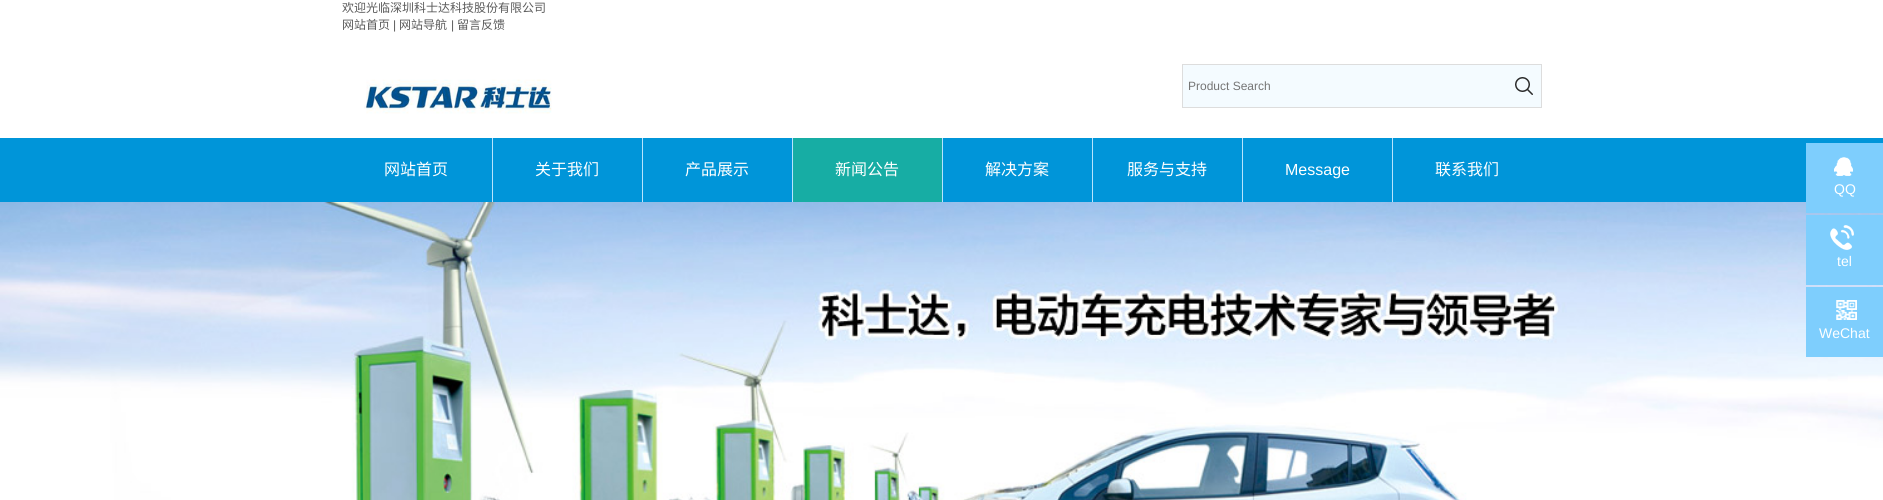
#include <cairo/cairo.h>
#include <math.h>
#include <stddef.h>

static cairo_t *cr;

static void use_color(int r, int g, int b) {
  cairo_set_source_rgb(cr, r / 255.0, g / 255.0, b / 255.0);
}

static void text(double x, double y, const char *s, const char *family, double size, int italic, int bold, int r, int g, int b) {
  cairo_select_font_face(cr, family, italic ? CAIRO_FONT_SLANT_ITALIC : CAIRO_FONT_SLANT_NORMAL,
    bold ? CAIRO_FONT_WEIGHT_BOLD : CAIRO_FONT_WEIGHT_NORMAL);
  cairo_set_font_size(cr, size);
  use_color(r, g, b);
  cairo_move_to(cr, x, y);
  cairo_show_text(cr, s);
}

static void box(double x, double y, double w, double h, int r, int g, int b) {
  use_color(r, g, b);
  cairo_rectangle(cr, x, y, w, h);
  cairo_fill(cr);
}

static void picture(const char *path, double x, double y, double w, double h) {
  cairo_surface_t *image = cairo_image_surface_create_from_png(path);
  cairo_save(cr);
  cairo_set_source_surface(cr, image, x, y);
  cairo_rectangle(cr, x, y, w, h);
  cairo_fill(cr);
  cairo_restore(cr);
  cairo_surface_destroy(image);
}

static void draw(void) {
  use_color(255, 255, 255);
  cairo_paint(cr);
  picture("img_01.png", 364, 79, 188, 35);
  use_color(244, 251, 255);
  cairo_rectangle(cr, 1182.5, 64.5, 359, 43);
  cairo_fill_preserve(cr);
  use_color(221, 221, 221);
  cairo_set_line_width(cr, 1);
  cairo_stroke(cr);
  picture("img_02.png", 1515, 77, 18, 18);
  box(0, 138, 1883, 64, 0, 149, 217);
  box(492, 138, 1, 64, 183, 228, 254);
  box(642, 138, 1, 64, 183, 228, 254);
  box(792, 138, 1, 64, 183, 228, 254);
  box(793, 138, 149, 64, 23, 173, 164);
  box(942, 138, 1, 64, 183, 228, 254);
  box(1092, 138, 1, 64, 183, 228, 254);
  box(1242, 138, 1, 64, 183, 228, 254);
  box(1392, 138, 1, 64, 183, 228, 254);
  picture("img_06.png", 0, 202, 1883, 298);
  box(1806, 143, 77, 70, 126, 206, 253);
  picture("img_03.png", 1834, 157, 19, 19);
  box(1806, 215, 77, 70, 126, 206, 253);
  picture("img_04.png", 1830, 225, 24, 25);
  box(1806, 287, 77, 70, 126, 206, 253);
  picture("img_05.png", 1836, 300, 21, 20);
  text(342, 12, "欢迎光临深圳科士达科技股份有限公司", "Noto Sans CJK SC", 12, 0, 0, 90, 90, 90);
  text(342, 29, "网站首页", "Noto Sans CJK SC", 12, 0, 0, 90, 90, 90);
  text(393, 29, "|", "Liberation Sans", 12, 0, 0, 90, 90, 90);
  text(399, 29, "网站导航", "Noto Sans CJK SC", 12, 0, 0, 90, 90, 90);
  text(451, 29, "|", "Liberation Sans", 12, 0, 0, 90, 90, 90);
  text(457, 29, "留言反馈", "Noto Sans CJK SC", 12, 0, 0, 90, 90, 90);
  text(1188, 90, "Product Search", "Liberation Sans", 12, 0, 0, 117, 117, 117);
  text(384, 175, "网站首页", "Noto Sans CJK SC", 16, 0, 0, 255, 255, 255);
  text(535, 175, "关于我们", "Noto Sans CJK SC", 16, 0, 0, 255, 255, 255);
  text(685, 175, "产品展示", "Noto Sans CJK SC", 16, 0, 0, 255, 255, 255);
  text(835, 175, "新闻公告", "Noto Sans CJK SC", 16, 0, 0, 255, 255, 255);
  text(985, 175, "解决方案", "Noto Sans CJK SC", 16, 0, 0, 255, 255, 255);
  text(1127, 175, "服务与支持", "Noto Sans CJK SC", 16, 0, 0, 255, 255, 255);
  text(1285, 175, "Message", "Liberation Sans", 16, 0, 0, 255, 255, 255);
  text(1435, 175, "联系我们", "Noto Sans CJK SC", 16, 0, 0, 255, 255, 255);
  text(1834, 194, "QQ", "Liberation Sans", 14, 0, 0, 255, 255, 255);
  text(1837, 266, "tel", "Liberation Sans", 14, 0, 0, 255, 255, 255);
  text(1819, 338, "WeChat", "Liberation Sans", 14, 0, 0, 255, 255, 255);
}

int main(void) {
  cairo_surface_t *surface = cairo_image_surface_create(CAIRO_FORMAT_RGB24, 1883, 500);
  cr = cairo_create(surface);
  cairo_font_options_t *options = cairo_font_options_create();
  cairo_font_options_set_hint_metrics(options, CAIRO_HINT_METRICS_OFF);
  cairo_font_options_set_hint_style(options, CAIRO_HINT_STYLE_NONE);
  cairo_set_font_options(cr, options);
  cairo_set_miter_limit(cr, 4);
  draw();
  cairo_surface_write_to_png(surface, "out.png");
  cairo_font_options_destroy(options);
  cairo_destroy(cr);
  cairo_surface_destroy(surface);
  return 0;
}
